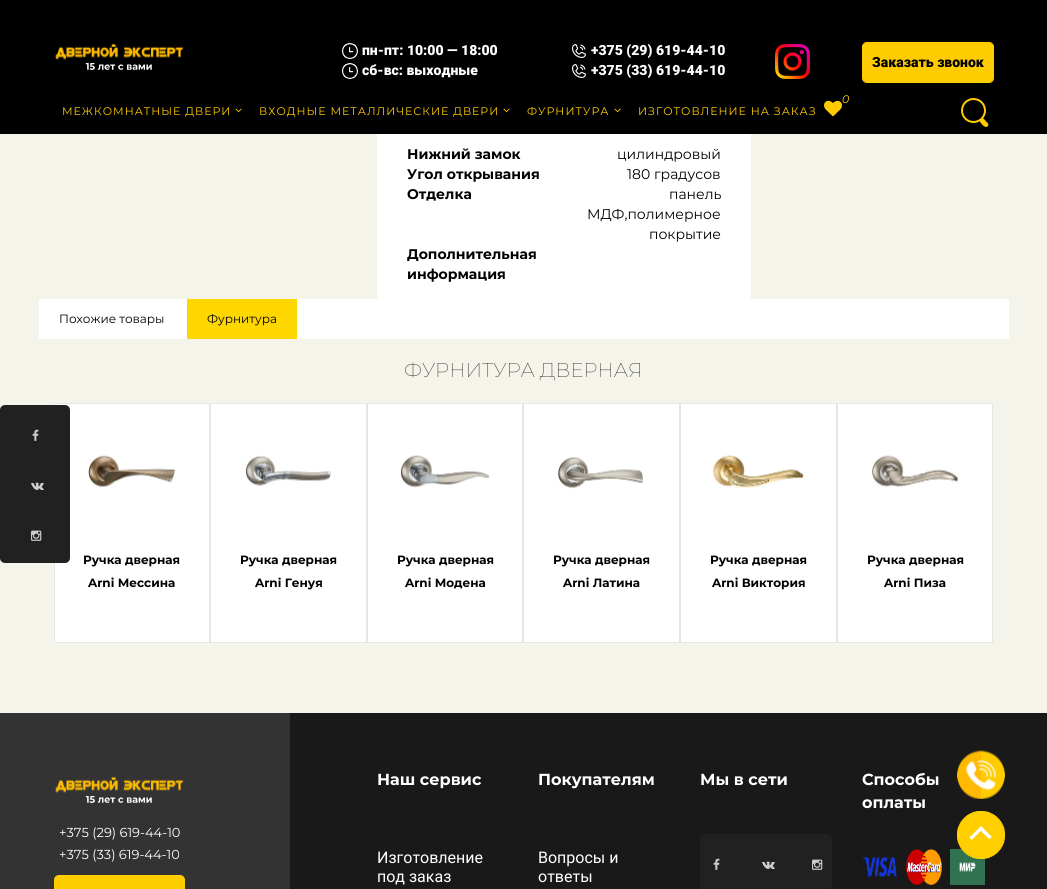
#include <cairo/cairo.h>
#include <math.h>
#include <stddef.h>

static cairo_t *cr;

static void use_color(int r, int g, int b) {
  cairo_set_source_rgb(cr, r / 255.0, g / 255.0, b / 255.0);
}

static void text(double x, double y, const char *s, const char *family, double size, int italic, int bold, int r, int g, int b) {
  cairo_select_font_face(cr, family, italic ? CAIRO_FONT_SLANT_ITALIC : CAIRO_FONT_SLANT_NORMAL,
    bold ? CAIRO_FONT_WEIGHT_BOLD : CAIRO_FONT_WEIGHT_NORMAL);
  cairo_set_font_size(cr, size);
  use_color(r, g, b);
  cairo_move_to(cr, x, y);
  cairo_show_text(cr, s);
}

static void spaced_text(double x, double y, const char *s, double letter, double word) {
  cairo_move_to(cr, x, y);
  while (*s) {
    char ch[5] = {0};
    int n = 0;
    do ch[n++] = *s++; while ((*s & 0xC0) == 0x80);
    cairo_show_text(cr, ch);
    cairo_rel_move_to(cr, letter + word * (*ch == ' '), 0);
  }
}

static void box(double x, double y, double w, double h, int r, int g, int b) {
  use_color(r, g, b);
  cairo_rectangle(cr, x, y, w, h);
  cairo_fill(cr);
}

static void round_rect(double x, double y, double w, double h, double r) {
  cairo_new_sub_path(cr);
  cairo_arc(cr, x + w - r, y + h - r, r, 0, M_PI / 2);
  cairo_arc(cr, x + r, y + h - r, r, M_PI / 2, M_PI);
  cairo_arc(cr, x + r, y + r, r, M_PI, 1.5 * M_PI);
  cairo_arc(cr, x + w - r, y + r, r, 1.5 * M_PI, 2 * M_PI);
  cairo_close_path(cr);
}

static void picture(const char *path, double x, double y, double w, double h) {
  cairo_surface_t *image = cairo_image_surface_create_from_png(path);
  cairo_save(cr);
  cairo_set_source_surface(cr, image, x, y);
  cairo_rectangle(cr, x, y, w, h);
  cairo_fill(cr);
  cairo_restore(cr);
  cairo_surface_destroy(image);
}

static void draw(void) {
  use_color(245, 244, 235);
  cairo_paint(cr);
  box(0, 0, 1047, 134, 0, 0, 0);
  picture("img_01.png", 55, 43, 129, 27);
  picture("img_02.png", 342, 43, 16, 16);
  picture("img_02.png", 342, 63, 16, 16);
  picture("img_03.png", 572, 44, 14, 14);
  picture("img_03.png", 572, 64, 14, 14);
  picture("img_04.png", 775, 44, 35, 35);
  use_color(255, 204, 0);
  round_rect(862.5, 42.5, 131, 40, 4.5);
  cairo_fill_preserve(cr);
  cairo_set_line_width(cr, 1);
  cairo_stroke(cr);
  picture("img_05.png", 824, 100, 18, 17);
  picture("img_06.png", 235, 108, 7, 5);
  picture("img_06.png", 503, 108, 7, 5);
  picture("img_06.png", 614, 108, 7, 5);
  cairo_arc(cr, 973.5, 110.5, 11.5, 0, 2 * M_PI);
  cairo_set_line_width(cr, 2);
  cairo_stroke(cr);
  cairo_new_path(cr);
  cairo_move_to(cr, 984, 119);
  cairo_line_to(cr, 988, 123.5);
  cairo_curve_to(cr, 988.5, 124.5, 988.5, 125, 988, 126);
  cairo_curve_to(cr, 985.5, 129, 982, 124.5, 980.5, 122.5);
  cairo_curve_to(cr, 978.5, 120.5, 982, 117, 984, 119);
  cairo_close_path(cr);
  cairo_fill(cr);
  box(377, 134, 374, 165, 255, 255, 255);
  box(39, 299, 970, 40, 255, 255, 255);
  box(187, 299, 110, 40, 254, 215, 0);
  use_color(255, 255, 255);
  cairo_rectangle(cr, 54.5, 403.5, 155, 239);
  cairo_fill_preserve(cr);
  use_color(230, 230, 230);
  cairo_set_line_width(cr, 1);
  cairo_stroke(cr);
  picture("img_07.png", 88, 455, 88, 33);
  use_color(255, 255, 255);
  cairo_rectangle(cr, 210.5, 403.5, 156, 239);
  cairo_fill_preserve(cr);
  use_color(230, 230, 230);
  cairo_stroke(cr);
  picture("img_08.png", 245, 455, 86, 31);
  use_color(255, 255, 255);
  cairo_rectangle(cr, 367.5, 403.5, 155, 239);
  cairo_fill_preserve(cr);
  use_color(230, 230, 230);
  cairo_stroke(cr);
  picture("img_09.png", 400, 455, 90, 33);
  use_color(255, 255, 255);
  cairo_rectangle(cr, 523.5, 403.5, 156, 239);
  cairo_fill_preserve(cr);
  use_color(230, 230, 230);
  cairo_stroke(cr);
  picture("img_10.png", 558, 456, 85, 33);
  use_color(255, 255, 255);
  cairo_rectangle(cr, 680.5, 403.5, 156, 239);
  cairo_fill_preserve(cr);
  use_color(230, 230, 230);
  cairo_stroke(cr);
  picture("img_11.png", 712, 455, 92, 33);
  use_color(255, 255, 255);
  cairo_rectangle(cr, 837.5, 403.5, 155, 239);
  cairo_fill_preserve(cr);
  use_color(230, 230, 230);
  cairo_stroke(cr);
  picture("img_12.png", 872, 455, 87, 32);
  box(290, 713, 757, 176, 25, 25, 25);
  use_color(33, 33, 33);
  round_rect(0, 405, 70, 158, 5);
  cairo_fill(cr);
  picture("img_13.png", 32, 429, 7, 12);
  picture("img_14.png", 31, 482, 13, 8);
  picture("img_15.png", 31, 530, 11, 11);
  box(0, 713, 290, 176, 51, 51, 51);
  picture("img_16.png", 55, 776, 129, 27);
  use_color(255, 204, 0);
  round_rect(54.5, 875.5, 130, 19, 4.5);
  cairo_fill_preserve(cr);
  cairo_stroke(cr);
  use_color(33, 33, 33);
  round_rect(700, 834, 132, 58, 5);
  cairo_fill(cr);
  picture("img_13.png", 713, 858, 7, 12);
  picture("img_14.png", 762, 861, 13, 8);
  picture("img_15.png", 812, 859, 11, 11);
  picture("img_17.png", 863, 857, 34, 20);
  picture("img_18.png", 906, 849, 36, 36);
  picture("img_19.png", 950, 849, 35, 36);
  picture("img_20.png", 957, 750, 48, 49);
  picture("img_21.png", 957, 811, 48, 48);
  text(362, 55, "пн-пт: 10:00 — 18:00", "Roboto Black", 14, 0, 0, 255, 255, 255);
  text(362, 75, "сб-вс: выходные", "Roboto Black", 14, 0, 0, 255, 255, 255);
  text(591, 55, "+375 (29) 619-44-10", "Roboto Black", 14, 0, 0, 255, 255, 255);
  text(591, 75, "+375 (33) 619-44-10", "Roboto Black", 14, 0, 0, 255, 255, 255);
  text(872, 67, "Заказать звонок", "Roboto Black", 14, 0, 0, 0, 0, 0);
  cairo_select_font_face(cr, "Montserrat", CAIRO_FONT_SLANT_ITALIC, CAIRO_FONT_WEIGHT_NORMAL);
  cairo_set_font_size(cr, 11);
  use_color(255, 204, 0);
  spaced_text(842, 103, "0", 1, 0);
  cairo_select_font_face(cr, "Montserrat", CAIRO_FONT_SLANT_NORMAL, CAIRO_FONT_WEIGHT_NORMAL);
  spaced_text(62, 115, "МЕЖКОМНАТНЫЕ ДВЕРИ", 1, 0);
  spaced_text(259, 115, "ВХОДНЫЕ МЕТАЛЛИЧЕСКИЕ ДВЕРИ", 1, 0);
  spaced_text(527, 115, "ФУРНИТУРА", 1, 0);
  spaced_text(638, 115, "ИЗГОТОВЛЕНИЕ НА ЗАКАЗ", 1, 0);
  text(407, 159, "Нижний замок", "Montserrat", 14, 0, 1, 0, 0, 0);
  text(617, 159, "цилиндровый", "Montserrat", 14, 0, 0, 0, 0, 0);
  text(407, 179, "Угол открывания", "Montserrat", 14, 0, 1, 0, 0, 0);
  text(627, 179, "180 градусов", "Montserrat", 14, 0, 0, 0, 0, 0);
  text(407, 199, "Отделка", "Montserrat", 14, 0, 1, 0, 0, 0);
  text(669, 199, "панель", "Montserrat", 14, 0, 0, 0, 0, 0);
  text(587, 219, "МДФ,полимерное", "Montserrat", 14, 0, 0, 0, 0, 0);
  text(649, 239, "покрытие", "Montserrat", 14, 0, 0, 0, 0, 0);
  text(407, 259, "Дополнительная", "Montserrat", 14, 0, 1, 0, 0, 0);
  text(407, 279, "информация", "Montserrat", 14, 0, 1, 0, 0, 0);
  text(59, 323, "Похожие товары", "Montserrat", 12, 0, 0, 0, 0, 0);
  text(207, 323, "Фурнитура", "Montserrat", 12, 0, 0, 0, 0, 0);
  text(404, 377, "ФУРНИТУРА ДВЕРНАЯ", "Montserrat Thin", 20, 0, 0, 0, 0, 0);
  text(83, 564, "Ручка дверная", "Montserrat", 12, 0, 1, 0, 0, 0);
  text(88, 587, "Arni Мессина", "Montserrat", 12, 0, 1, 0, 0, 0);
  text(240, 564, "Ручка дверная", "Montserrat", 12, 0, 1, 0, 0, 0);
  text(255, 587, "Arni Генуя", "Montserrat", 12, 0, 1, 0, 0, 0);
  text(397, 564, "Ручка дверная", "Montserrat", 12, 0, 1, 0, 0, 0);
  text(405, 587, "Arni Модена", "Montserrat", 12, 0, 1, 0, 0, 0);
  text(553, 564, "Ручка дверная", "Montserrat", 12, 0, 1, 0, 0, 0);
  text(563, 587, "Arni Латина", "Montserrat", 12, 0, 1, 0, 0, 0);
  text(710, 564, "Ручка дверная", "Montserrat", 12, 0, 1, 0, 0, 0);
  text(712, 587, "Arni Виктория", "Montserrat", 12, 0, 1, 0, 0, 0);
  text(867, 564, "Ручка дверная", "Montserrat", 12, 0, 1, 0, 0, 0);
  text(884, 587, "Arni Пиза", "Montserrat", 12, 0, 1, 0, 0, 0);
  text(59, 837, "+375 (29) 619-44-10", "Montserrat", 13, 0, 0, 255, 255, 255);
  text(59, 859, "+375 (33) 619-44-10", "Montserrat", 13, 0, 0, 255, 255, 255);
  text(377, 785, "Наш сервис", "Montserrat", 16, 0, 1, 255, 255, 255);
  text(538, 785, "Покупателям", "Montserrat", 16, 0, 1, 255, 255, 255);
  text(700, 785, "Мы в сети", "Montserrat", 16, 0, 1, 255, 255, 255);
  text(862, 785, "Способы", "Montserrat", 16, 0, 1, 255, 255, 255);
  text(862, 808, "оплаты", "Montserrat", 16, 0, 1, 255, 255, 255);
  text(377, 863, "Изготовление", "Roboto", 16, 0, 0, 255, 255, 255);
  text(377, 882, "под заказ", "Roboto", 16, 0, 0, 255, 255, 255);
  text(538, 863, "Вопросы и", "Roboto", 16, 0, 0, 255, 255, 255);
  text(538, 882, "ответы", "Roboto", 16, 0, 0, 255, 255, 255);
}

int main(void) {
  cairo_surface_t *surface = cairo_image_surface_create(CAIRO_FORMAT_RGB24, 1047, 889);
  cr = cairo_create(surface);
  cairo_font_options_t *options = cairo_font_options_create();
  cairo_font_options_set_hint_metrics(options, CAIRO_HINT_METRICS_OFF);
  cairo_font_options_set_hint_style(options, CAIRO_HINT_STYLE_NONE);
  cairo_set_font_options(cr, options);
  cairo_set_miter_limit(cr, 4);
  draw();
  cairo_surface_write_to_png(surface, "out.png");
  cairo_font_options_destroy(options);
  cairo_destroy(cr);
  cairo_surface_destroy(surface);
  return 0;
}
